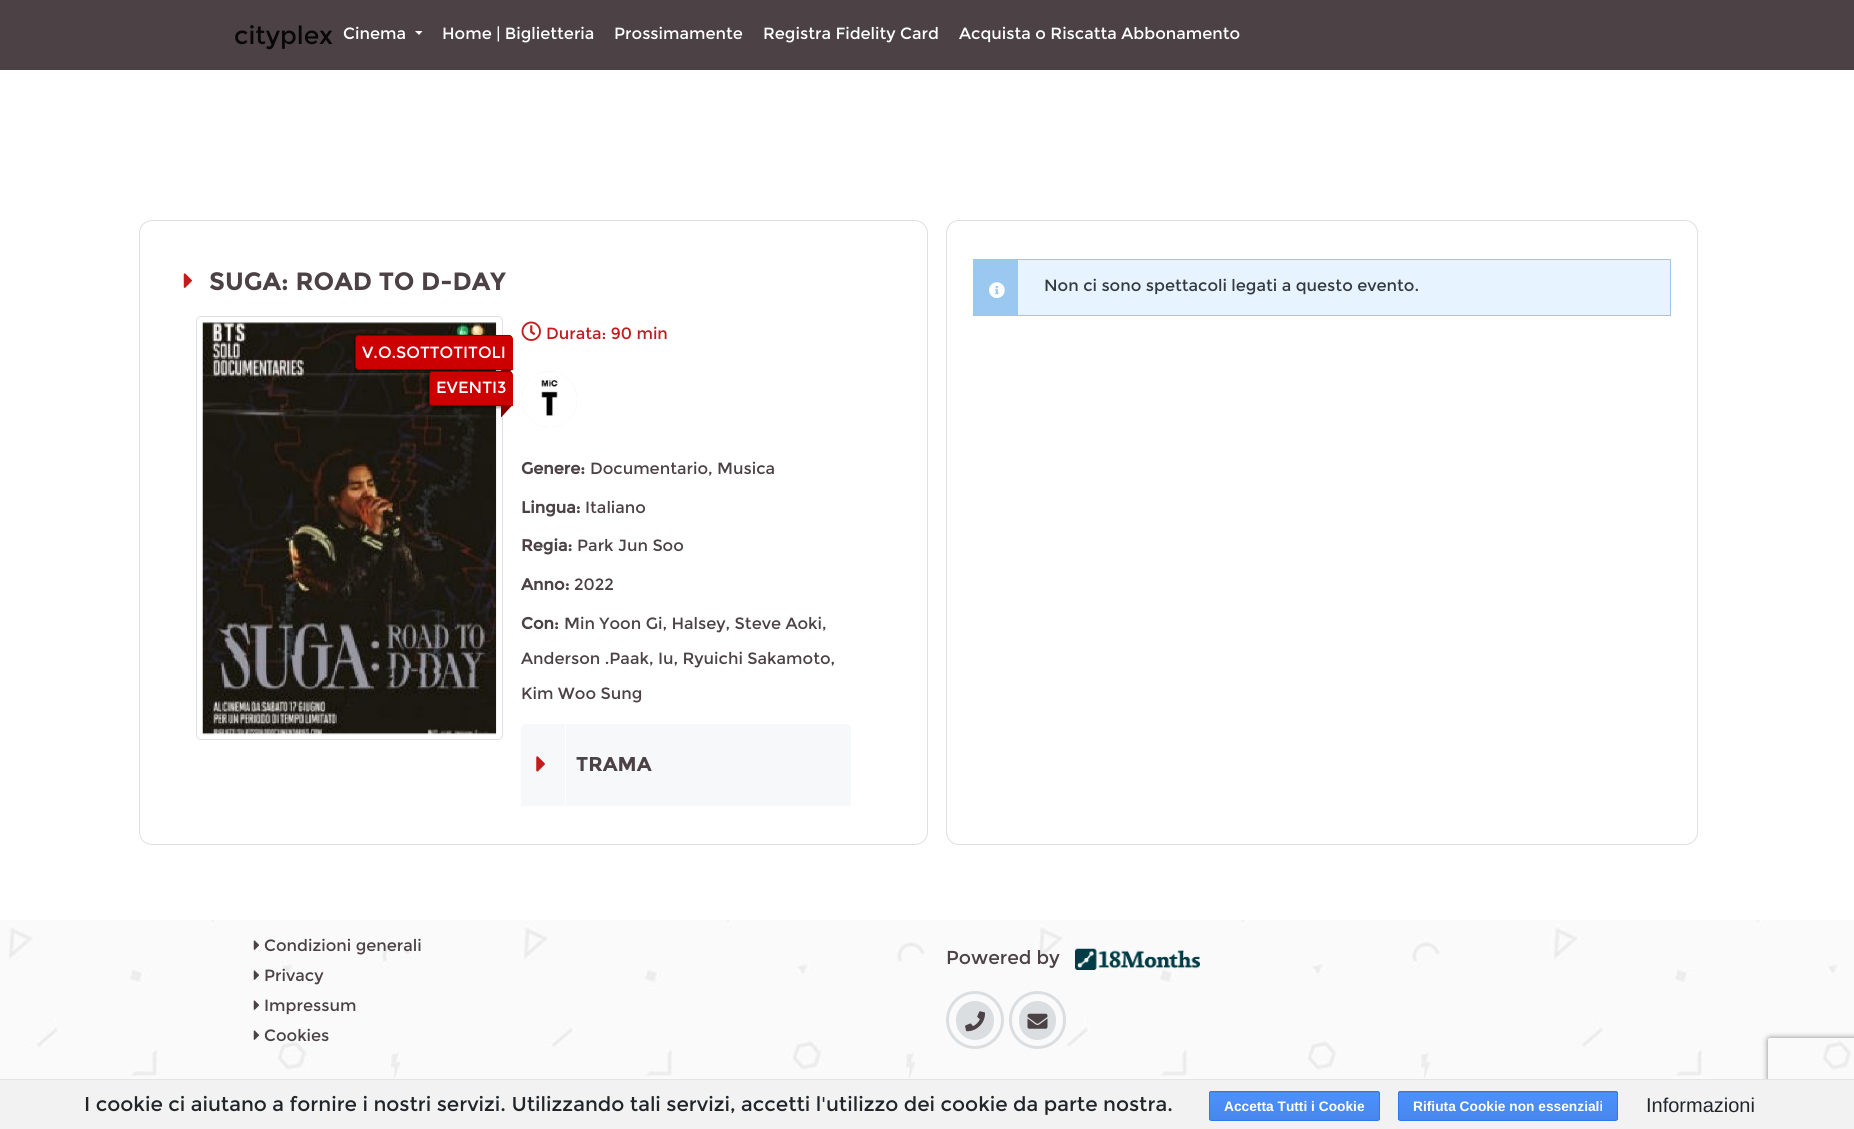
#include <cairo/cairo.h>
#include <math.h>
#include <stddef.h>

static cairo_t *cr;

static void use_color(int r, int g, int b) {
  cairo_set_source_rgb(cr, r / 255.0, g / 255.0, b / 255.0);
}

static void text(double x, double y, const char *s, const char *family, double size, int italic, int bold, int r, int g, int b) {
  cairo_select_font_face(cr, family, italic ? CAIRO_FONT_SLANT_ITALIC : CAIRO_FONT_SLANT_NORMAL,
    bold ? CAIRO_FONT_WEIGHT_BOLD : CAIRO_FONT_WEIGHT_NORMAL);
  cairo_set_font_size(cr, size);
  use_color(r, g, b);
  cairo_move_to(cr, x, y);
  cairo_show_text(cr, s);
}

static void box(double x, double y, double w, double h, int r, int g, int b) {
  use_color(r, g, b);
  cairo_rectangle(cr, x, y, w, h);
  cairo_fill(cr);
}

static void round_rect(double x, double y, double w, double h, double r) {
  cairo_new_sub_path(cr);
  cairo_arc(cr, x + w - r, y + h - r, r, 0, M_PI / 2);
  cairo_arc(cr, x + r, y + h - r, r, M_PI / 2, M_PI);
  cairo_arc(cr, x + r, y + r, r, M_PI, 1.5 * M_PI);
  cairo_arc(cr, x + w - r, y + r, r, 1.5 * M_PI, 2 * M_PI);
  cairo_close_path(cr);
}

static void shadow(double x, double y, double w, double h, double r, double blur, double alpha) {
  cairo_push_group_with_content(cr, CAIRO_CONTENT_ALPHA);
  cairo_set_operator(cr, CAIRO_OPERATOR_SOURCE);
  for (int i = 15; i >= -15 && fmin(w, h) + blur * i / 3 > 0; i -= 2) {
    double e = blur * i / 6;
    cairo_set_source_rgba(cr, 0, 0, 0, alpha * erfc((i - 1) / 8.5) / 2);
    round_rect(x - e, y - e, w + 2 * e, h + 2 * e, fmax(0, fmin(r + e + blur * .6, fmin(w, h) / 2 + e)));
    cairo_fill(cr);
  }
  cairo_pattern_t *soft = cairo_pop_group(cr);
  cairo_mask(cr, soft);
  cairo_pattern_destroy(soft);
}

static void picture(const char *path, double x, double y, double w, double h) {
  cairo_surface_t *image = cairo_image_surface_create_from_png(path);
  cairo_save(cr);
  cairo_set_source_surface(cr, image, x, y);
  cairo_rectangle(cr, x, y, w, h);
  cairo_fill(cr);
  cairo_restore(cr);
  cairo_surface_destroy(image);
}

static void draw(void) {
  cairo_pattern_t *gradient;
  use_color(255, 255, 255);
  cairo_paint(cr);
  box(0, 0, 1854, 70, 76, 65, 69);
  use_color(255, 255, 255);
  cairo_new_path(cr);
  cairo_move_to(cr, 415, 31);
  cairo_line_to(cr, 422.5, 31);
  cairo_line_to(cr, 419, 35);
  cairo_close_path(cr);
  cairo_fill(cr);
  round_rect(139.5, 220.5, 788, 624, 12.5);
  use_color(223, 223, 223);
  cairo_set_line_width(cr, 1);
  cairo_stroke(cr);
  picture("img_01.png", 183, 273, 9, 15);
  round_rect(196.5, 316.5, 306, 423, 4.5);
  use_color(222, 226, 230);
  cairo_stroke(cr);
  picture("img_02.png", 202, 322, 295, 413);
  use_color(0, 0, 0);
  shadow(354, 336, 157, 35, 4, 1, 0.4);
  use_color(204, 0, 0);
  cairo_new_path(cr);
  cairo_move_to(cr, 359, 335);
  cairo_line_to(cr, 509, 335);
  cairo_curve_to(cr, 511, 335, 513, 337, 513, 339);
  cairo_line_to(cr, 513, 370);
  cairo_line_to(cr, 359, 370);
  cairo_curve_to(cr, 357, 370, 355, 368, 355, 366);
  cairo_line_to(cr, 355, 339);
  cairo_curve_to(cr, 355, 337, 357, 335, 359, 335);
  cairo_close_path(cr);
  cairo_fill(cr);
  use_color(128, 0, 0);
  cairo_set_fill_rule(cr, CAIRO_FILL_RULE_EVEN_ODD);
  cairo_new_path(cr);
  cairo_move_to(cr, 359, 335);
  cairo_line_to(cr, 509, 335);
  cairo_curve_to(cr, 511, 335, 512, 337, 512, 339);
  cairo_line_to(cr, 512, 370);
  cairo_line_to(cr, 359, 370);
  cairo_curve_to(cr, 357, 370, 355, 368, 355, 366);
  cairo_line_to(cr, 355, 339);
  cairo_curve_to(cr, 355, 337, 357, 335, 359, 335);
  cairo_close_path(cr);
  cairo_move_to(cr, 359, 336);
  cairo_line_to(cr, 509, 336);
  cairo_curve_to(cr, 511, 336, 512, 337, 512, 339);
  cairo_line_to(cr, 512, 369);
  cairo_line_to(cr, 359, 369);
  cairo_curve_to(cr, 357, 369, 356, 368, 356, 366);
  cairo_line_to(cr, 356, 339);
  cairo_curve_to(cr, 356, 337, 357, 336, 359, 336);
  cairo_close_path(cr);
  cairo_fill(cr);
  cairo_set_fill_rule(cr, CAIRO_FILL_RULE_WINDING);
  cairo_new_path(cr);
  cairo_move_to(cr, 501, 381);
  cairo_line_to(cr, 501, 369);
  cairo_line_to(cr, 512.5, 369);
  cairo_close_path(cr);
  cairo_fill(cr);
  use_color(0, 0, 0);
  shadow(428, 373, 83, 35, 4, 1, 0.4);
  use_color(204, 0, 0);
  cairo_new_path(cr);
  cairo_move_to(cr, 433, 371);
  cairo_line_to(cr, 509, 371);
  cairo_curve_to(cr, 511, 371, 513, 373, 513, 375);
  cairo_line_to(cr, 513, 406);
  cairo_line_to(cr, 433, 406);
  cairo_curve_to(cr, 431, 406, 429, 404, 429, 402);
  cairo_line_to(cr, 429, 375);
  cairo_curve_to(cr, 429, 373, 431, 371, 433, 371);
  cairo_close_path(cr);
  cairo_fill(cr);
  use_color(128, 0, 0);
  cairo_set_fill_rule(cr, CAIRO_FILL_RULE_EVEN_ODD);
  cairo_new_path(cr);
  cairo_move_to(cr, 432, 371);
  cairo_line_to(cr, 509, 371);
  cairo_curve_to(cr, 511, 371, 512, 373, 512, 375);
  cairo_line_to(cr, 512, 406);
  cairo_line_to(cr, 432, 406);
  cairo_curve_to(cr, 430, 406, 429, 405, 429, 402);
  cairo_line_to(cr, 429, 375);
  cairo_curve_to(cr, 429, 373, 430, 371, 432, 371);
  cairo_close_path(cr);
  cairo_move_to(cr, 432, 372);
  cairo_line_to(cr, 509, 372);
  cairo_curve_to(cr, 511, 372, 512, 374, 512, 375);
  cairo_line_to(cr, 512, 405);
  cairo_line_to(cr, 432, 405);
  cairo_curve_to(cr, 431, 405, 430, 404, 430, 402);
  cairo_line_to(cr, 430, 375);
  cairo_curve_to(cr, 430, 374, 431, 372, 432, 372);
  cairo_close_path(cr);
  cairo_fill(cr);
  cairo_set_fill_rule(cr, CAIRO_FILL_RULE_WINDING);
  cairo_new_path(cr);
  cairo_move_to(cr, 501, 417.5);
  cairo_line_to(cr, 501, 405);
  cairo_line_to(cr, 512.5, 405);
  cairo_close_path(cr);
  cairo_fill(cr);
  picture("img_03.png", 521, 321, 20, 20);
  picture("img_04.png", 521, 371, 57, 57);
  use_color(247, 248, 249);
  cairo_new_path(cr);
  cairo_move_to(cr, 525, 724);
  cairo_line_to(cr, 847, 724);
  cairo_curve_to(cr, 849, 724, 851, 726, 851, 728);
  cairo_line_to(cr, 851, 806);
  cairo_line_to(cr, 521, 806);
  cairo_line_to(cr, 521, 728);
  cairo_curve_to(cr, 521, 726, 523, 724, 525, 724);
  cairo_close_path(cr);
  cairo_fill(cr);
  box(565, 725, 1, 80, 255, 255, 255);
  picture("img_05.png", 536, 756, 9, 16);
  round_rect(946.5, 220.5, 751, 624, 12.5);
  use_color(223, 223, 223);
  cairo_stroke(cr);
  box(1018, 260, 652, 55, 231, 244, 255);
  cairo_rectangle(cr, 973.5, 259.5, 697, 56);
  use_color(154, 200, 241);
  cairo_stroke(cr);
  box(974, 260, 44, 55, 154, 200, 241);
  picture("img_06.png", 989, 282, 16, 16);
  box(0, 920, 1854, 159, 250, 250, 250);
  picture("img_07.png", 9, 920, 1842, 159);
  picture("img_08.png", 253, 940, 7, 10);
  picture("img_08.png", 253, 970, 7, 10);
  picture("img_08.png", 253, 1000, 7, 10);
  picture("img_08.png", 253, 1030, 7, 10);
  picture("img_09.png", 1075, 948, 125, 22);
  use_color(219, 222, 225);
  round_rect(956, 1001, 38, 39, 19);
  cairo_fill(cr);
  picture("img_10.png", 965, 1011, 20, 21);
  cairo_arc(cr, 975, 1020, 27.5, 0, 2 * M_PI);
  cairo_set_line_width(cr, 3);
  cairo_stroke(cr);
  round_rect(1019, 1001, 37, 39, 18.5);
  cairo_fill(cr);
  picture("img_11.png", 1027, 1013, 21, 16);
  round_rect(1010.5, 992.5, 54, 55, 27);
  cairo_stroke(cr);
  cairo_save(cr);
  cairo_set_fill_rule(cr, CAIRO_FILL_RULE_EVEN_ODD);
  cairo_new_path(cr);
  cairo_move_to(cr, 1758, 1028);
  cairo_line_to(cr, 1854, 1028);
  cairo_line_to(cr, 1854, 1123);
  cairo_line_to(cr, 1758, 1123);
  cairo_close_path(cr);
  cairo_move_to(cr, 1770.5, 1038);
  cairo_line_to(cr, 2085.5, 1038);
  cairo_curve_to(cr, 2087, 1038, 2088, 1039, 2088, 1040.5);
  cairo_line_to(cr, 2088, 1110.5);
  cairo_curve_to(cr, 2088, 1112, 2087, 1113, 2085.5, 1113);
  cairo_line_to(cr, 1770.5, 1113);
  cairo_curve_to(cr, 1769, 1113, 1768, 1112, 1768, 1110.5);
  cairo_line_to(cr, 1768, 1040.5);
  cairo_curve_to(cr, 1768, 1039, 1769, 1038, 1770.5, 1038);
  cairo_close_path(cr);
  cairo_clip(cr);
  use_color(128, 128, 128);
  shadow(1768, 1038, 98, 75, 2.5, 3, 1);
  cairo_restore(cr);
  box(0, 1080, 1854, 49, 242, 242, 242);
  box(0, 1079, 1854, 1, 228, 228, 228);
  cairo_save(cr);
  round_rect(1209, 1091, 171, 30, 2.5);
  cairo_clip(cr);
  gradient = cairo_pattern_create_linear(1294, 1065, 1294, 1093);
  cairo_pattern_add_color_stop_rgba(gradient, 0, 0.302, 0.565, 0.996, 1);
  cairo_pattern_add_color_stop_rgba(gradient, 1, 0.278, 0.529, 0.929, 1);
  cairo_set_source(cr, gradient);
  cairo_pattern_destroy(gradient);
  cairo_rectangle(cr, 1209, 1091, 171, 2);
  cairo_fill(cr);
  cairo_restore(cr);
  gradient = cairo_pattern_create_linear(1294, 1093, 1294, 1120);
  cairo_pattern_add_color_stop_rgba(gradient, 0, 0.302, 0.565, 0.996, 1);
  cairo_pattern_add_color_stop_rgba(gradient, 1, 0.278, 0.529, 0.929, 1);
  cairo_set_source(cr, gradient);
  cairo_pattern_destroy(gradient);
  cairo_rectangle(cr, 1209, 1093, 171, 27);
  cairo_fill(cr);
  round_rect(1209.5, 1091.5, 170, 29, 2);
  use_color(48, 121, 237);
  cairo_set_line_width(cr, 1);
  cairo_stroke(cr);
  cairo_save(cr);
  round_rect(1398, 1091, 220, 30, 2.5);
  cairo_clip(cr);
  gradient = cairo_pattern_create_linear(1508, 1065, 1508, 1093);
  cairo_pattern_add_color_stop_rgba(gradient, 0, 0.302, 0.565, 0.996, 1);
  cairo_pattern_add_color_stop_rgba(gradient, 1, 0.278, 0.529, 0.929, 1);
  cairo_set_source(cr, gradient);
  cairo_pattern_destroy(gradient);
  cairo_rectangle(cr, 1398, 1091, 220, 2);
  cairo_fill(cr);
  cairo_restore(cr);
  gradient = cairo_pattern_create_linear(1508, 1093, 1508, 1120);
  cairo_pattern_add_color_stop_rgba(gradient, 0, 0.302, 0.565, 0.996, 1);
  cairo_pattern_add_color_stop_rgba(gradient, 1, 0.278, 0.529, 0.929, 1);
  cairo_set_source(cr, gradient);
  cairo_pattern_destroy(gradient);
  cairo_rectangle(cr, 1398, 1093, 220, 27);
  cairo_fill(cr);
  round_rect(1398.5, 1091.5, 219, 29, 2);
  use_color(48, 121, 237);
  cairo_stroke(cr);
  text(234, 44, "cityplex", "Montserrat", 25, 0, 0, 8, 7, 7);
  text(343, 39, "Cinema", "Montserrat", 16.25, 0, 0, 255, 255, 255);
  text(442, 39, "Home | Biglietteria", "Montserrat", 16.25, 0, 0, 255, 255, 255);
  text(614, 39, "Prossimamente", "Montserrat", 16.25, 0, 0, 255, 255, 255);
  text(763, 39, "Registra Fidelity Card", "Montserrat", 16.25, 0, 0, 255, 255, 255);
  text(959, 39, "Acquista o Riscatta Abbonamento", "Montserrat", 16.25, 0, 0, 255, 255, 255);
  text(209, 290, "SUGA: ROAD TO D-DAY", "Montserrat", 25, 0, 1, 76, 65, 69);
  text(362, 358, "V.O.SOTTOTITOLI", "Montserrat", 16.25, 0, 0, 255, 255, 255);
  text(436, 393, "EVENTI3", "Montserrat", 16.25, 0, 0, 255, 255, 255);
  text(546, 339, "Durata: 90 min", "Montserrat", 16.25, 0, 0, 195, 28, 29);
  text(521, 474, "Genere:", "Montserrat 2", 16.25, 0, 1, 76, 65, 69);
  text(590, 474, "Documentario, Musica", "Montserrat", 16.25, 0, 0, 76, 65, 69);
  text(521, 513, "Lingua:", "Montserrat 2", 16.25, 0, 1, 76, 65, 69);
  text(585, 513, "Italiano", "Montserrat", 16.25, 0, 0, 76, 65, 69);
  text(521, 551, "Regia:", "Montserrat 2", 16.25, 0, 1, 76, 65, 69);
  text(577, 551, "Park Jun Soo", "Montserrat", 16.25, 0, 0, 76, 65, 69);
  text(521, 590, "Anno:", "Montserrat 2", 16.25, 0, 1, 76, 65, 69);
  text(574, 590, "2022", "Montserrat", 16.25, 0, 0, 76, 65, 69);
  text(521, 629, "Con:", "Montserrat 2", 16.25, 0, 1, 76, 65, 69);
  text(564, 629, "Min Yoon Gi, Halsey, Steve Aoki,", "Montserrat", 16.25, 0, 0, 76, 65, 69);
  text(521, 664, "Anderson .Paak, Iu, Ryuichi Sakamoto,", "Montserrat", 16.25, 0, 0, 76, 65, 69);
  text(521, 699, "Kim Woo Sung", "Montserrat", 16.25, 0, 0, 76, 65, 69);
  text(576, 771, "TRAMA", "Montserrat", 20, 0, 1, 76, 65, 69);
  text(1044, 291, "Non ci sono spettacoli legati a questo evento.", "Montserrat", 16.25, 0, 0, 52, 58, 64);
  text(264, 951, "Condizioni generali", "Montserrat", 16.25, 0, 0, 76, 65, 69);
  text(264, 981, "Privacy", "Montserrat", 16.25, 0, 0, 76, 65, 69);
  text(264, 1011, "Impressum", "Montserrat", 16.25, 0, 0, 76, 65, 69);
  text(264, 1041, "Cookies", "Montserrat", 16.25, 0, 0, 76, 65, 69);
  text(946, 964, "Powered by", "Montserrat", 18.75, 0, 0, 76, 65, 69);
  text(84, 1111, "I cookie ci aiutano a fornire i nostri servizi. Utilizzando tali servizi, accetti l'utilizzo dei cookie da parte nostra.", "Montserrat", 20, 0, 0, 33, 37, 41);
  text(1224, 1111, "Accetta Tutti i Cookie", "Liberation Sans", 13.75, 0, 1, 255, 255, 255);
  text(1413, 1111, "Rifiuta Cookie non essenziali", "Liberation Sans", 13.75, 0, 1, 255, 255, 255);
  text(1646, 1112, "Informazioni", "Liberation Sans", 20, 0, 0, 33, 37, 41);
}

int main(void) {
  cairo_surface_t *surface = cairo_image_surface_create(CAIRO_FORMAT_RGB24, 1854, 1129);
  cr = cairo_create(surface);
  cairo_font_options_t *options = cairo_font_options_create();
  cairo_font_options_set_hint_metrics(options, CAIRO_HINT_METRICS_OFF);
  cairo_font_options_set_hint_style(options, CAIRO_HINT_STYLE_NONE);
  cairo_set_font_options(cr, options);
  cairo_set_miter_limit(cr, 4);
  draw();
  cairo_surface_write_to_png(surface, "out.png");
  cairo_font_options_destroy(options);
  cairo_destroy(cr);
  cairo_surface_destroy(surface);
  return 0;
}
